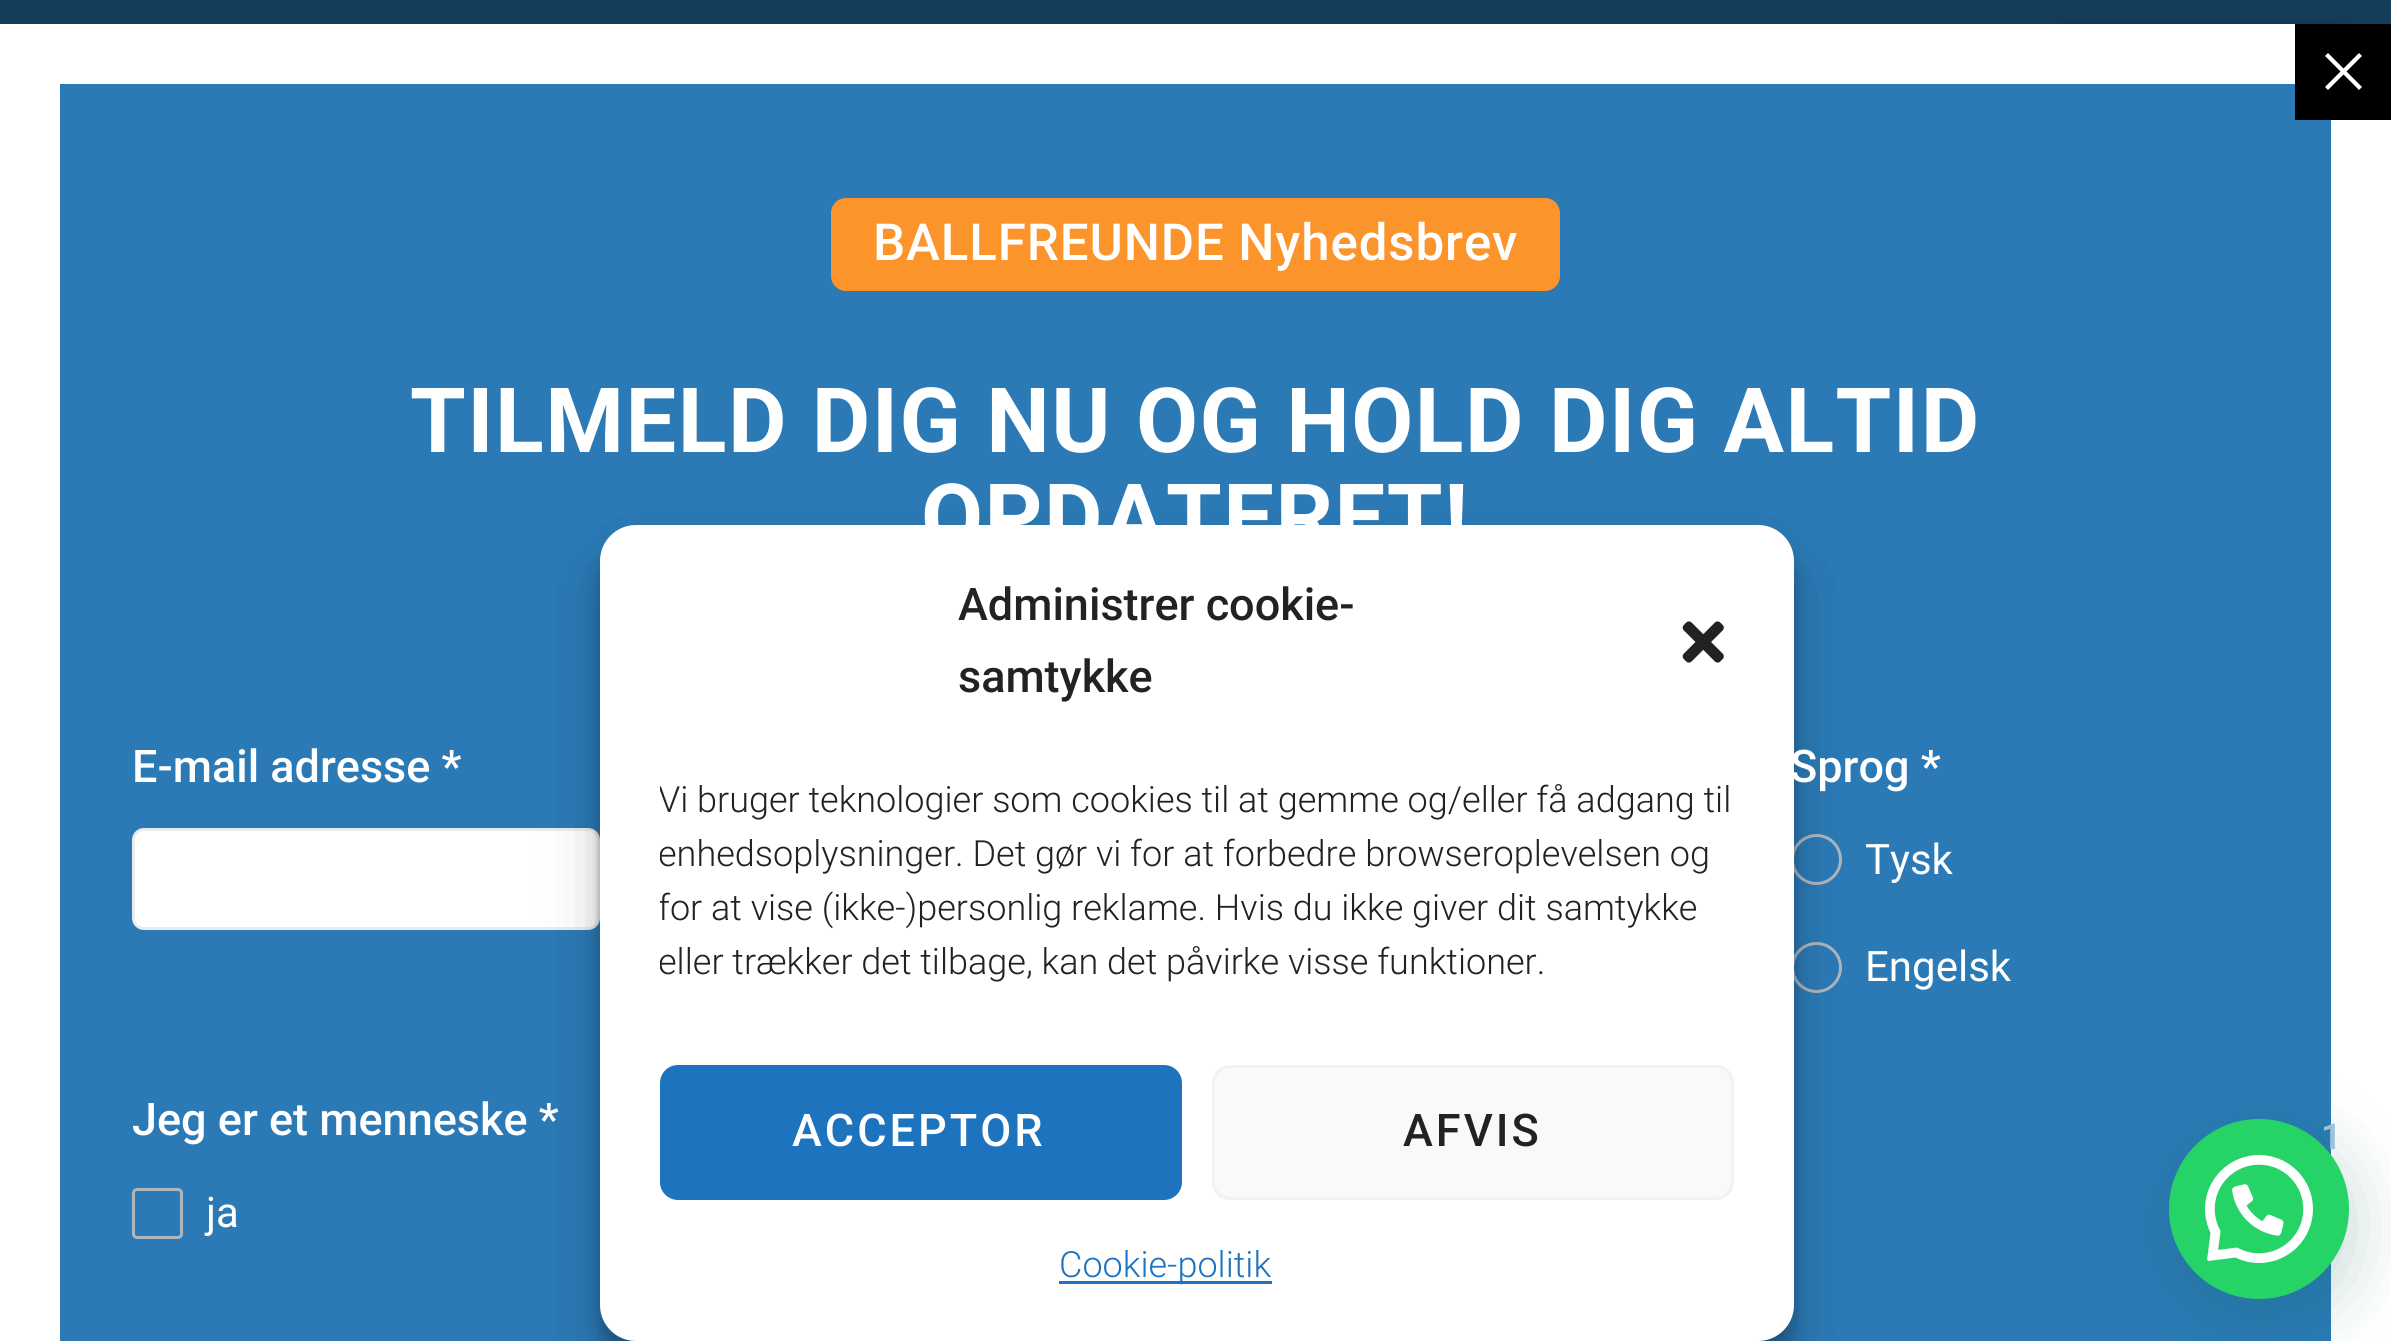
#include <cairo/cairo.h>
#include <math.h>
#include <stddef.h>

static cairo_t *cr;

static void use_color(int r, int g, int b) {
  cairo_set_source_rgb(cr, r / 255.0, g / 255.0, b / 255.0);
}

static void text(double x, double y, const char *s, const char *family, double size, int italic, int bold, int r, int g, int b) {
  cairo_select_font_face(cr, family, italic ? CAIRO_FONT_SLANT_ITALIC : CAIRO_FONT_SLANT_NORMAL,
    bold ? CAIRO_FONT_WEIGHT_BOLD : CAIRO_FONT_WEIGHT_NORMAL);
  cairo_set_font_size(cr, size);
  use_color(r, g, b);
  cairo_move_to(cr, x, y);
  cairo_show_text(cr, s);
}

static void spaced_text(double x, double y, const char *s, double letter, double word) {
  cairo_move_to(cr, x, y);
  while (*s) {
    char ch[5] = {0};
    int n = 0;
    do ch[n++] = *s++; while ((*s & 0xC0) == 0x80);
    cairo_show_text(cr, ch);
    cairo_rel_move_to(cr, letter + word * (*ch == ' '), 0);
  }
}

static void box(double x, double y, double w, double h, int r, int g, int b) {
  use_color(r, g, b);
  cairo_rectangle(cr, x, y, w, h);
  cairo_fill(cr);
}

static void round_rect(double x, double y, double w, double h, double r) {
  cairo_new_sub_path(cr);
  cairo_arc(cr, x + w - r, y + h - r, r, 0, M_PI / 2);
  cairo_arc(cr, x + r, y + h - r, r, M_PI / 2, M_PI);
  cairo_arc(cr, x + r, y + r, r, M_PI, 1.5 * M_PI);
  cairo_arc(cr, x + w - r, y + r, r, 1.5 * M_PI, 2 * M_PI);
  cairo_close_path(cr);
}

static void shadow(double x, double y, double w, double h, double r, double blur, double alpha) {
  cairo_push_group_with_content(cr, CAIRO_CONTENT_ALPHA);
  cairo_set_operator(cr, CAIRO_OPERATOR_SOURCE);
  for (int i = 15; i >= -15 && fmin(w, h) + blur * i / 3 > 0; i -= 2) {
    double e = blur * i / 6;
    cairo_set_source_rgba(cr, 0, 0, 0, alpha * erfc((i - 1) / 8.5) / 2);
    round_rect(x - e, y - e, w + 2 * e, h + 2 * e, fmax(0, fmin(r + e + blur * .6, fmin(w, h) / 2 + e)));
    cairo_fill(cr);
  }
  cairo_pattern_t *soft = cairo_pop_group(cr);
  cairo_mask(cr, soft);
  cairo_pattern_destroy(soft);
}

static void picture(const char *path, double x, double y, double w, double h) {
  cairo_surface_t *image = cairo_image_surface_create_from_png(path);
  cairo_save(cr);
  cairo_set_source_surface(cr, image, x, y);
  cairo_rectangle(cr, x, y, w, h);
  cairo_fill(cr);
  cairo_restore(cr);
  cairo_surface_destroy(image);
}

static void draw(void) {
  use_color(20, 60, 91);
  cairo_paint(cr);
  use_color(0, 0, 0);
  shadow(2043, 42, 318, 183, 30, 15, 0.5);
  box(0, 24, 2391, 1317, 255, 255, 255);
  box(60, 84, 2271, 1257, 43, 122, 182);
  box(2295, 24, 96, 96, 0, 0, 0);
  use_color(255, 255, 255);
  cairo_new_path(cr);
  cairo_move_to(cr, 2343.5, 74.5);
  cairo_line_to(cr, 2359, 90);
  cairo_line_to(cr, 2362, 87);
  cairo_line_to(cr, 2346.5, 71.5);
  cairo_line_to(cr, 2362, 56);
  cairo_line_to(cr, 2359, 53);
  cairo_line_to(cr, 2343.5, 68.5);
  cairo_line_to(cr, 2328, 53);
  cairo_line_to(cr, 2325, 56);
  cairo_line_to(cr, 2340.5, 71.5);
  cairo_line_to(cr, 2325, 87);
  cairo_line_to(cr, 2328, 90);
  cairo_close_path(cr);
  cairo_fill(cr);
  use_color(252, 148, 44);
  round_rect(831, 198, 729, 93, 15);
  cairo_fill(cr);
  use_color(255, 255, 255);
  round_rect(133.5, 829.5, 465, 99, 10.5);
  cairo_fill_preserve(cr);
  use_color(235, 236, 237);
  cairo_set_line_width(cr, 3);
  cairo_stroke(cr);
  cairo_arc(cr, 1816.5, 859.5, 24, 0, 2 * M_PI);
  use_color(173, 181, 189);
  cairo_stroke(cr);
  cairo_arc(cr, 1816.5, 967.5, 24, 0, 2 * M_PI);
  cairo_stroke(cr);
  round_rect(133.5, 1189.5, 48, 48, 3.5);
  cairo_stroke(cr);
  use_color(0, 0, 0);
  shadow(600, 543, 1194, 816, 36, 9, 0.23);
  shadow(600, 555, 1194, 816, 36, 30, 0.19);
  use_color(255, 255, 255);
  round_rect(600, 525, 1194, 816, 36);
  cairo_fill(cr);
  picture("img_01.png", 1682, 621, 42, 42);
  use_color(30, 115, 190);
  round_rect(661.5, 1066.5, 519, 132, 16.5);
  cairo_fill_preserve(cr);
  cairo_stroke(cr);
  use_color(249, 249, 249);
  round_rect(1213.5, 1066.5, 519, 132, 16.5);
  cairo_fill_preserve(cr);
  use_color(242, 242, 242);
  cairo_stroke(cr);
  box(1059, 1281, 213, 3, 30, 115, 190);
  use_color(7, 94, 84);
  shadow(2172, 1137, 180, 180, 90, 36, 0.24);
  use_color(37, 211, 102);
  cairo_arc(cr, 2259, 1209, 90, 0, 2 * M_PI);
  cairo_fill(cr);
  picture("img_02.png", 2205, 1155, 108, 108);
  cairo_select_font_face(cr, "Roboto Medium", CAIRO_FONT_SLANT_NORMAL, CAIRO_FONT_WEIGHT_NORMAL);
  cairo_set_font_size(cr, 51);
  use_color(255, 255, 255);
  spaced_text(873, 260, "BALLFREUNDE Nyhedsbrev", 0.9, 0);
  cairo_select_font_face(cr, "Roboto", CAIRO_FONT_SLANT_NORMAL, CAIRO_FONT_WEIGHT_BOLD);
  cairo_set_font_size(cr, 90);
  spaced_text(410, 452, "TILMELD DIG NU OG HOLD DIG ALTID", 1.5, 0);
  spaced_text(921, 548, "OPDATERET!", 1.5, 0);
  text(132, 782, "E-mail adresse *", "Roboto Medium", 45, 0, 0, 255, 255, 255);
  text(1790, 782, "Sprog *", "Roboto Medium", 45, 0, 0, 255, 255, 255);
  text(1865, 874, "Tysk", "Roboto", 42, 0, 0, 255, 255, 255);
  text(1865, 981, "Engelsk", "Roboto", 42, 0, 0, 255, 255, 255);
  text(132, 1135, "Jeg er et menneske *", "Roboto Medium", 45, 0, 0, 255, 255, 255);
  text(206, 1227, "ja", "Roboto", 42, 0, 0, 255, 255, 255);
  text(958, 620, "Administrer cookie-", "Roboto Medium", 45, 0, 0, 34, 34, 34);
  text(958, 692, "samtykke", "Roboto Medium", 45, 0, 0, 34, 34, 34);
  cairo_save(cr);
  cairo_rectangle(cr, 660, 774, 1074, 231);
  cairo_clip(cr);
  text(658, 812, "Vi bruger teknologier som cookies til at gemme og/eller få adgang til", "Roboto Light", 36, 0, 0, 34, 34, 34);
  text(658, 866, "enhedsoplysninger. Det gør vi for at forbedre browseroplevelsen og", "Roboto Light", 36, 0, 0, 34, 34, 34);
  text(658, 920, "for at vise (ikke-)personlig reklame. Hvis du ikke giver dit samtykke", "Roboto Light", 36, 0, 0, 34, 34, 34);
  text(658, 974, "eller trækker det tilbage, kan det påvirke visse funktioner.", "Roboto Light", 36, 0, 0, 34, 34, 34);
  cairo_restore(cr);
  use_color(255, 255, 255);
  spaced_text(792, 1146, "ACCEPTOR", 3, 0);
  use_color(34, 34, 34);
  spaced_text(1403, 1146, "AFVIS", 3, 0);
  text(1059, 1277, "Cookie-politik", "Roboto Light", 36, 0, 0, 30, 115, 190);
  text(2321, 1149, "1", "Roboto SemiBold", 36, 0, 0, 156, 193, 217);
}

int main(void) {
  cairo_surface_t *surface = cairo_image_surface_create(CAIRO_FORMAT_RGB24, 2391, 1341);
  cr = cairo_create(surface);
  cairo_font_options_t *options = cairo_font_options_create();
  cairo_font_options_set_hint_metrics(options, CAIRO_HINT_METRICS_OFF);
  cairo_font_options_set_hint_style(options, CAIRO_HINT_STYLE_NONE);
  cairo_set_font_options(cr, options);
  cairo_set_miter_limit(cr, 4);
  draw();
  cairo_surface_write_to_png(surface, "out.png");
  cairo_font_options_destroy(options);
  cairo_destroy(cr);
  cairo_surface_destroy(surface);
  return 0;
}
